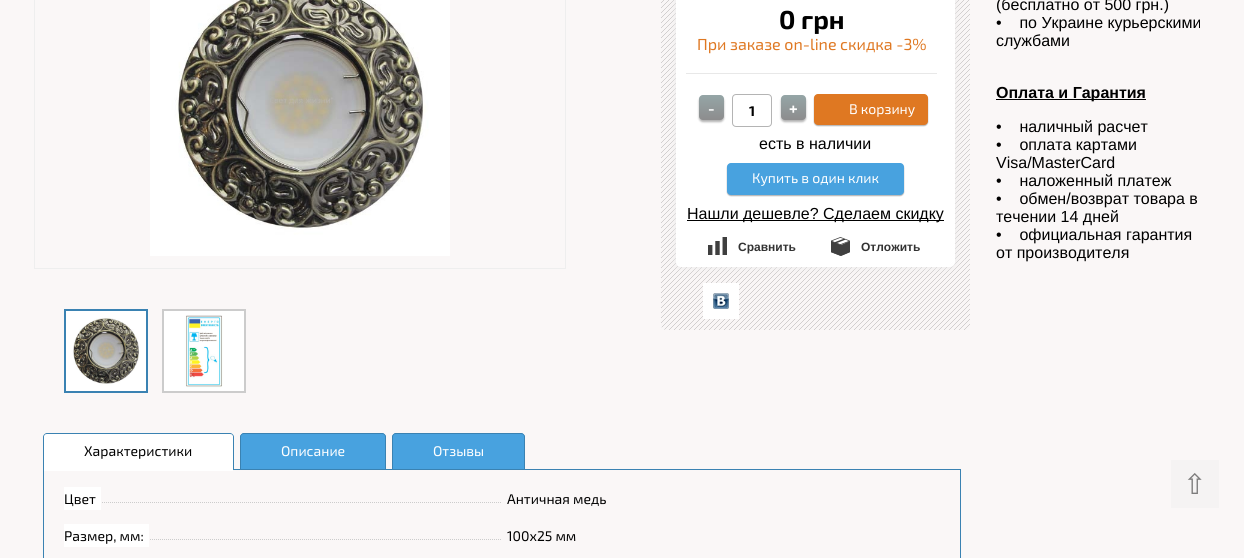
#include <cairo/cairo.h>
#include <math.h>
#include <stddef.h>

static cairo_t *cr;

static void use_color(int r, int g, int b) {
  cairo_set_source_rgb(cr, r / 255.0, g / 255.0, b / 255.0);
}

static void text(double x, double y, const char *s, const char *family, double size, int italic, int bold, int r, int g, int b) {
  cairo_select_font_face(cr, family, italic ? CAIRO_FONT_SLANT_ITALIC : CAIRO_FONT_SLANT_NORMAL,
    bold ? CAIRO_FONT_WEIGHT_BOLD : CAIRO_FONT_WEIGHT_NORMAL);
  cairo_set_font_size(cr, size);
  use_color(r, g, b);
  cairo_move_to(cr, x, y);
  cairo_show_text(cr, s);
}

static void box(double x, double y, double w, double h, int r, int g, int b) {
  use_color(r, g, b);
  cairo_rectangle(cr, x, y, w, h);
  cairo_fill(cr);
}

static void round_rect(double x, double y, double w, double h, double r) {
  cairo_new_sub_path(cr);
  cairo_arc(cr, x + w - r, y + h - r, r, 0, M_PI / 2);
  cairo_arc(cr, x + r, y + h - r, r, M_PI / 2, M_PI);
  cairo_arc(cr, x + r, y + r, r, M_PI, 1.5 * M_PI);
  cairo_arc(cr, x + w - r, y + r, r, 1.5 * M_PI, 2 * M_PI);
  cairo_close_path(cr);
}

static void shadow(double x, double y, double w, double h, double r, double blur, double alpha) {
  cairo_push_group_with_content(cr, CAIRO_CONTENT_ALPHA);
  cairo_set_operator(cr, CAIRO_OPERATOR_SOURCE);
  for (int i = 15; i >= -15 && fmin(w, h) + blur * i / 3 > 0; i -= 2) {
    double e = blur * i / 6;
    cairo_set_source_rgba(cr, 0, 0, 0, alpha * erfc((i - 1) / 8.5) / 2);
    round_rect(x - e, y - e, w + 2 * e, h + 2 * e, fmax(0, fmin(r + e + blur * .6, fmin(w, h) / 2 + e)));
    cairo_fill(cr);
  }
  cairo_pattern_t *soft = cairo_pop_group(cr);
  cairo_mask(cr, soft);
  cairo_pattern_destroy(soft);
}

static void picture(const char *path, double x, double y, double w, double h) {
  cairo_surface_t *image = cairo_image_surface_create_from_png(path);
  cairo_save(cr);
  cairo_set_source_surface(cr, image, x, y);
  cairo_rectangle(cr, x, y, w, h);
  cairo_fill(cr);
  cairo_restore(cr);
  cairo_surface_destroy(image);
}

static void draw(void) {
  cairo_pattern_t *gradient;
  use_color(250, 247, 247);
  cairo_paint(cr);
  cairo_rectangle(cr, 34.5, -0.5, 531, 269);
  use_color(238, 238, 238);
  cairo_set_line_width(cr, 1);
  cairo_stroke(cr);
  picture("img_01.png", 150, 0, 300, 256);
  cairo_rectangle(cr, 65, 310, 82, 82);
  use_color(58, 130, 178);
  cairo_set_line_width(cr, 2);
  cairo_stroke(cr);
  picture("img_02.png", 66, 311, 80, 80);
  cairo_rectangle(cr, 163, 310, 82, 82);
  use_color(204, 204, 204);
  cairo_stroke(cr);
  picture("img_03.png", 164, 311, 80, 80);
  picture("img_04.png", 661, 0, 309, 330);
  use_color(236, 236, 236);
  shadow(676, -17, 279, 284, 5, 4, 1);
  use_color(255, 255, 255);
  round_rect(676, -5, 279, 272, 5);
  cairo_fill(cr);
  box(686, 73, 251, 1, 232, 232, 232);
  use_color(0, 0, 0);
  shadow(699, 97, 25, 25, 4, 1, 0.3);
  gradient = cairo_pattern_create_linear(712, 95, 712, 120);
  cairo_pattern_add_color_stop_rgba(gradient, 0, 0.584, 0.647, 0.651, 1);
  cairo_pattern_add_color_stop_rgba(gradient, 1, 0.553, 0.553, 0.553, 1);
  cairo_set_source(cr, gradient);
  cairo_pattern_destroy(gradient);
  round_rect(699, 95, 25, 25, 4);
  cairo_fill(cr);
  round_rect(732.5, 94.5, 39, 32, 3.5);
  use_color(180, 180, 180);
  cairo_set_line_width(cr, 1);
  cairo_stroke(cr);
  use_color(0, 0, 0);
  shadow(781, 97, 25, 25, 4, 1, 0.3);
  gradient = cairo_pattern_create_linear(794, 95, 794, 120);
  cairo_pattern_add_color_stop_rgba(gradient, 0, 0.584, 0.647, 0.651, 1);
  cairo_pattern_add_color_stop_rgba(gradient, 1, 0.553, 0.553, 0.553, 1);
  cairo_set_source(cr, gradient);
  cairo_pattern_destroy(gradient);
  round_rect(781, 95, 25, 25, 4);
  cairo_fill(cr);
  use_color(0, 0, 0);
  shadow(814, 95, 114, 31, 4, 0.5, 0.3);
  use_color(223, 120, 34);
  round_rect(814, 94, 114, 31, 4);
  cairo_fill(cr);
  use_color(0, 0, 0);
  shadow(727, 164, 177, 32, 4, 0.5, 0.3);
  use_color(72, 162, 223);
  round_rect(727, 163, 177, 32, 4);
  cairo_fill(cr);
  box(687, 220, 257, 1, 0, 0, 0);
  picture("img_05.png", 708, 237, 19, 18);
  picture("img_06.png", 831, 237, 19, 19);
  box(703, 283, 36, 36, 255, 255, 255);
  picture("img_07.png", 713, 293, 16, 16);
  cairo_new_path(cr);
  cairo_move_to(cr, 47, 433);
  cairo_line_to(cr, 230, 433);
  cairo_curve_to(cr, 232, 433, 234, 435, 234, 437);
  cairo_line_to(cr, 234, 469);
  cairo_line_to(cr, 43, 469);
  cairo_line_to(cr, 43, 437);
  cairo_curve_to(cr, 43, 435, 45, 433, 47, 433);
  cairo_close_path(cr);
  cairo_fill(cr);
  use_color(58, 130, 178);
  cairo_set_fill_rule(cr, CAIRO_FILL_RULE_EVEN_ODD);
  cairo_new_path(cr);
  cairo_move_to(cr, 47, 433);
  cairo_line_to(cr, 230, 433);
  cairo_curve_to(cr, 232, 433, 234, 435, 234, 437);
  cairo_line_to(cr, 234, 469);
  cairo_line_to(cr, 43, 469);
  cairo_line_to(cr, 43, 437);
  cairo_curve_to(cr, 43, 435, 45, 433, 47, 433);
  cairo_close_path(cr);
  cairo_move_to(cr, 47, 434);
  cairo_line_to(cr, 230, 434);
  cairo_curve_to(cr, 232, 434, 233, 435, 233, 437);
  cairo_line_to(cr, 233, 469);
  cairo_line_to(cr, 44, 469);
  cairo_line_to(cr, 44, 437);
  cairo_curve_to(cr, 44, 435, 45, 434, 47, 434);
  cairo_close_path(cr);
  cairo_fill(cr);
  cairo_rectangle(cr, 43.5, 469.5, 917, 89);
  cairo_stroke(cr);
  box(44, 436, 189, 35, 255, 255, 255);
  use_color(72, 162, 223);
  cairo_new_path(cr);
  cairo_move_to(cr, 244, 433);
  cairo_line_to(cr, 382, 433);
  cairo_curve_to(cr, 384, 433, 386, 435, 386, 437);
  cairo_line_to(cr, 386, 469);
  cairo_line_to(cr, 240, 469);
  cairo_line_to(cr, 240, 437);
  cairo_curve_to(cr, 240, 435, 242, 433, 244, 433);
  cairo_close_path(cr);
  cairo_fill(cr);
  use_color(58, 130, 178);
  cairo_new_path(cr);
  cairo_move_to(cr, 244, 433);
  cairo_line_to(cr, 382, 433);
  cairo_curve_to(cr, 384, 433, 386, 435, 386, 437);
  cairo_line_to(cr, 386, 469);
  cairo_line_to(cr, 240, 469);
  cairo_line_to(cr, 240, 437);
  cairo_curve_to(cr, 240, 435, 242, 433, 244, 433);
  cairo_close_path(cr);
  cairo_move_to(cr, 244, 434);
  cairo_line_to(cr, 382, 434);
  cairo_curve_to(cr, 384, 434, 385, 435, 385, 437);
  cairo_line_to(cr, 385, 469);
  cairo_line_to(cr, 241, 469);
  cairo_line_to(cr, 241, 437);
  cairo_curve_to(cr, 241, 435, 242, 434, 244, 434);
  cairo_close_path(cr);
  cairo_fill(cr);
  use_color(72, 162, 223);
  cairo_new_path(cr);
  cairo_move_to(cr, 396, 433);
  cairo_line_to(cr, 521, 433);
  cairo_curve_to(cr, 523, 433, 525, 435, 525, 437);
  cairo_line_to(cr, 525, 469);
  cairo_line_to(cr, 392, 469);
  cairo_line_to(cr, 392, 437);
  cairo_curve_to(cr, 392, 435, 394, 433, 396, 433);
  cairo_close_path(cr);
  cairo_fill(cr);
  use_color(58, 130, 178);
  cairo_new_path(cr);
  cairo_move_to(cr, 396, 433);
  cairo_line_to(cr, 521, 433);
  cairo_curve_to(cr, 523, 433, 525, 435, 525, 437);
  cairo_line_to(cr, 525, 469);
  cairo_line_to(cr, 392, 469);
  cairo_line_to(cr, 392, 437);
  cairo_curve_to(cr, 392, 435, 394, 433, 396, 433);
  cairo_close_path(cr);
  cairo_move_to(cr, 396, 434);
  cairo_line_to(cr, 521, 434);
  cairo_curve_to(cr, 523, 434, 524, 435, 524, 437);
  cairo_line_to(cr, 524, 469);
  cairo_line_to(cr, 393, 469);
  cairo_line_to(cr, 393, 437);
  cairo_curve_to(cr, 393, 435, 394, 434, 396, 434);
  cairo_close_path(cr);
  cairo_fill(cr);
  picture("img_08.png", 102, 502, 399, 1);
  box(64, 487, 37, 23, 255, 255, 255);
  picture("img_09.png", 150, 539, 351, 1);
  box(64, 524, 85, 23, 255, 255, 255);
  box(996, 99, 150, 1, 0, 0, 0);
  box(1171, 460, 48, 48, 245, 243, 243);
  text(779, 29, "0 грн", "Exo 2", 26, 0, 1, 0, 0, 0);
  text(697, 50, "При заказе on-line скидка -3%", "Exo 2", 16, 0, 0, 223, 120, 34);
  text(708, 114, "-", "Exo 2", 16, 0, 1, 255, 255, 255);
  text(749, 116, "1", "Exo 2", 14, 0, 1, 0, 0, 0);
  text(789, 114, "+", "Exo 2", 16, 0, 1, 255, 255, 255);
  text(849, 114, "В корзину", "Exo 2", 14, 0, 0, 255, 255, 255);
  text(759, 149, "есть в наличии", "Liberation Sans", 16, 0, 0, 0, 0, 0);
  text(752, 183, "Купить в один клик", "Exo 2", 14, 0, 0, 255, 255, 255);
  text(687, 219, "Нашли дешевле? Сделаем скидку", "Liberation Sans", 16, 0, 0, 0, 0, 0);
  text(738, 251, "Сравнить", "Liberation Sans", 12, 0, 1, 51, 51, 51);
  text(861, 251, "Отложить", "Liberation Sans", 12, 0, 1, 51, 51, 51);
  text(84, 456, "Характеристики", "Exo 2", 14, 0, 0, 0, 0, 0);
  text(281, 456, "Описание", "Exo 2", 14, 0, 0, 255, 255, 255);
  text(433, 456, "Отзывы", "Exo 2", 14, 0, 0, 255, 255, 255);
  text(64, 504, "Цвет", "Exo 2", 14, 0, 0, 0, 0, 0);
  text(507, 504, "Античная медь", "Exo 2", 14, 0, 0, 0, 0, 0);
  text(64, 541, "Размер, мм:", "Exo 2", 14, 0, 0, 0, 0, 0);
  text(507, 541, "100х25 мм", "Exo 2", 14, 0, 0, 0, 0, 0);
  text(996, 10, "(бесплатно от 500 грн.)", "Liberation Sans", 16, 0, 0, 0, 0, 0);
  text(996, 28, "•    по Украине курьерскими", "Liberation Sans", 16, 0, 0, 0, 0, 0);
  text(996, 46, "службами", "Liberation Sans", 16, 0, 0, 0, 0, 0);
  text(996, 98, "Оплата и Гарантия", "Liberation Sans", 16, 0, 1, 0, 0, 0);
  text(996, 132, "•    наличный расчет", "Liberation Sans", 16, 0, 0, 0, 0, 0);
  text(996, 150, "•    оплата картами", "Liberation Sans", 16, 0, 0, 0, 0, 0);
  text(996, 168, "Visa/MasterCard", "Liberation Sans", 16, 0, 0, 0, 0, 0);
  text(996, 186, "•    наложенный платеж", "Liberation Sans", 16, 0, 0, 0, 0, 0);
  text(996, 204, "•    обмен/возврат товара в", "Liberation Sans", 16, 0, 0, 0, 0, 0);
  text(996, 222, "течении 14 дней", "Liberation Sans", 16, 0, 0, 0, 0, 0);
  text(996, 240, "•    официальная гарантия", "Liberation Sans", 16, 0, 0, 0, 0, 0);
  text(996, 258, "от производителя", "Liberation Sans", 16, 0, 0, 0, 0, 0);
  text(1183, 494, "⇧", "DejaVu Sans", 28, 0, 0, 125, 124, 124);
}

int main(void) {
  cairo_surface_t *surface = cairo_image_surface_create(CAIRO_FORMAT_RGB24, 1244, 558);
  cr = cairo_create(surface);
  cairo_font_options_t *options = cairo_font_options_create();
  cairo_font_options_set_hint_metrics(options, CAIRO_HINT_METRICS_OFF);
  cairo_font_options_set_hint_style(options, CAIRO_HINT_STYLE_NONE);
  cairo_set_font_options(cr, options);
  cairo_set_miter_limit(cr, 4);
  draw();
  cairo_surface_write_to_png(surface, "out.png");
  cairo_font_options_destroy(options);
  cairo_destroy(cr);
  cairo_surface_destroy(surface);
  return 0;
}
